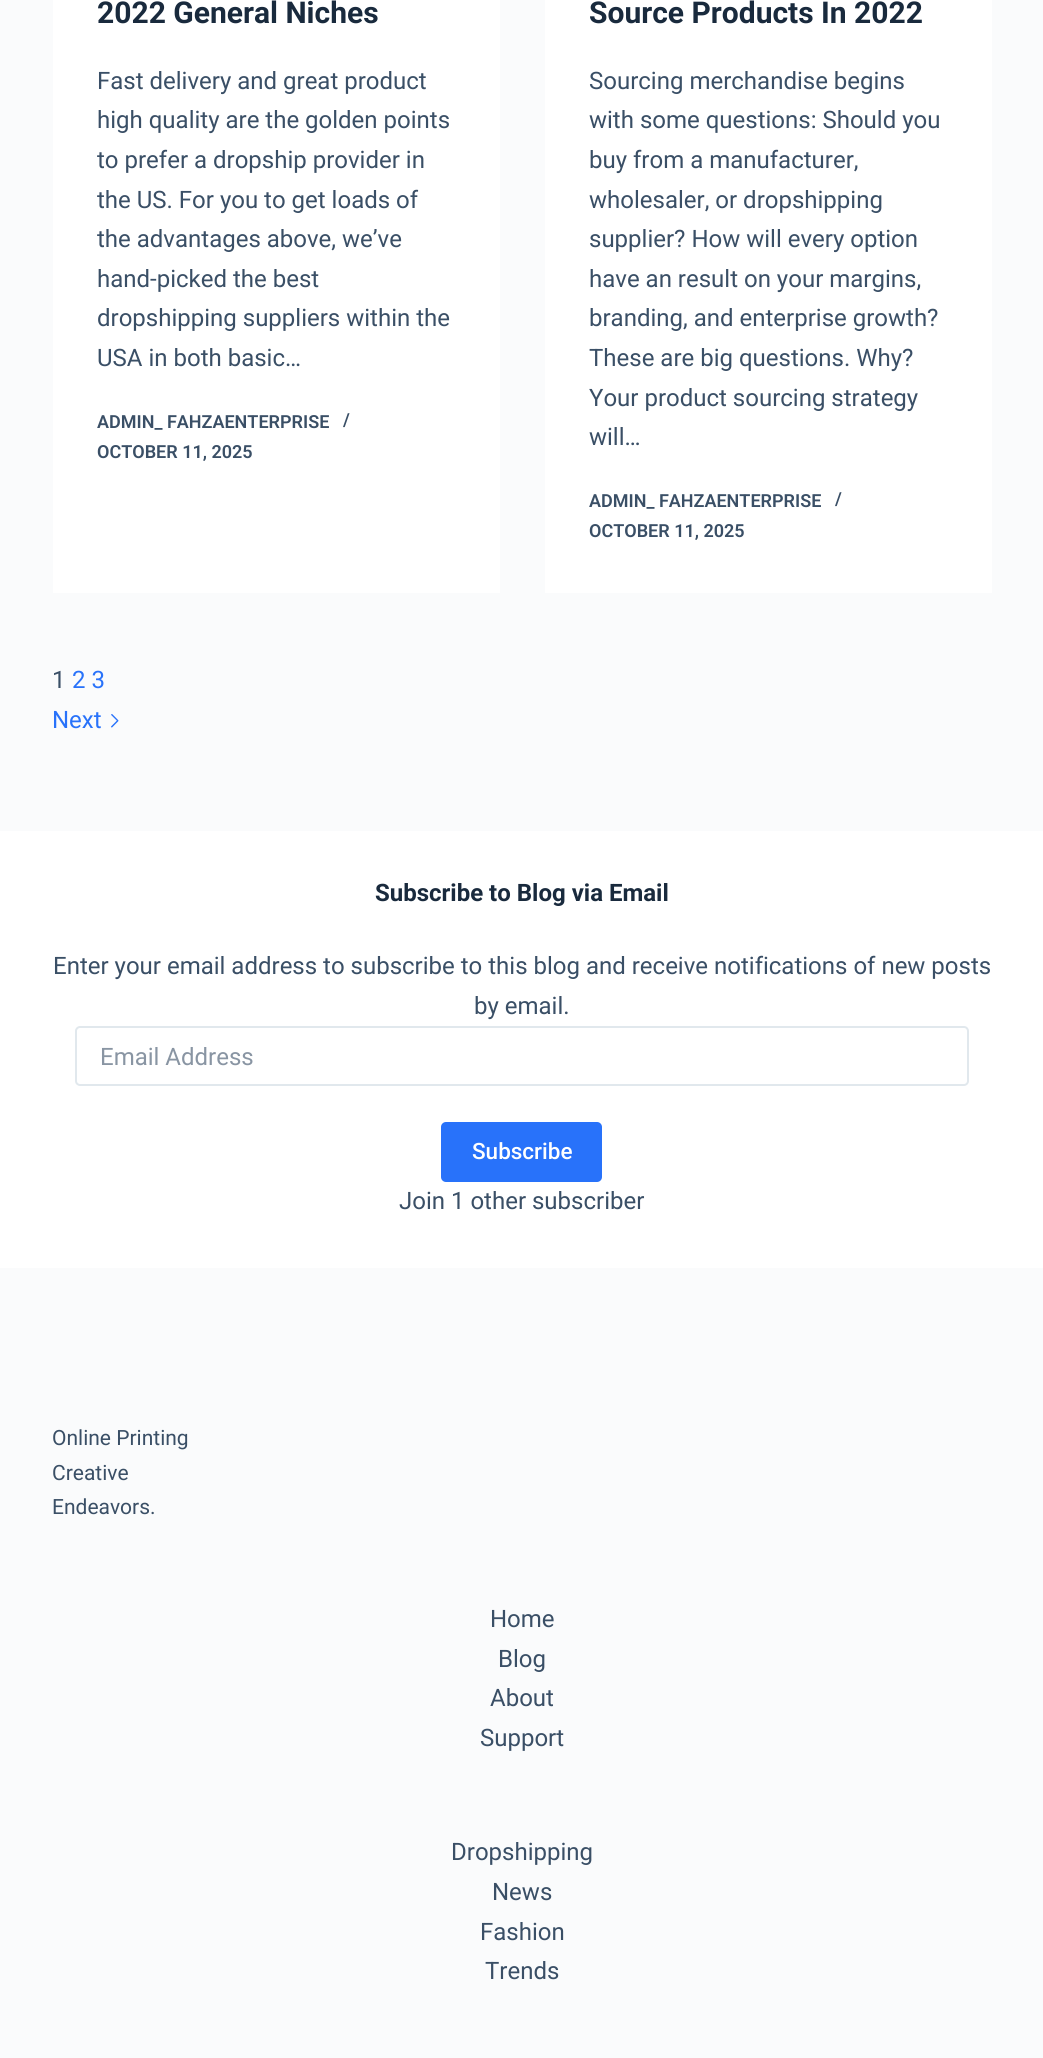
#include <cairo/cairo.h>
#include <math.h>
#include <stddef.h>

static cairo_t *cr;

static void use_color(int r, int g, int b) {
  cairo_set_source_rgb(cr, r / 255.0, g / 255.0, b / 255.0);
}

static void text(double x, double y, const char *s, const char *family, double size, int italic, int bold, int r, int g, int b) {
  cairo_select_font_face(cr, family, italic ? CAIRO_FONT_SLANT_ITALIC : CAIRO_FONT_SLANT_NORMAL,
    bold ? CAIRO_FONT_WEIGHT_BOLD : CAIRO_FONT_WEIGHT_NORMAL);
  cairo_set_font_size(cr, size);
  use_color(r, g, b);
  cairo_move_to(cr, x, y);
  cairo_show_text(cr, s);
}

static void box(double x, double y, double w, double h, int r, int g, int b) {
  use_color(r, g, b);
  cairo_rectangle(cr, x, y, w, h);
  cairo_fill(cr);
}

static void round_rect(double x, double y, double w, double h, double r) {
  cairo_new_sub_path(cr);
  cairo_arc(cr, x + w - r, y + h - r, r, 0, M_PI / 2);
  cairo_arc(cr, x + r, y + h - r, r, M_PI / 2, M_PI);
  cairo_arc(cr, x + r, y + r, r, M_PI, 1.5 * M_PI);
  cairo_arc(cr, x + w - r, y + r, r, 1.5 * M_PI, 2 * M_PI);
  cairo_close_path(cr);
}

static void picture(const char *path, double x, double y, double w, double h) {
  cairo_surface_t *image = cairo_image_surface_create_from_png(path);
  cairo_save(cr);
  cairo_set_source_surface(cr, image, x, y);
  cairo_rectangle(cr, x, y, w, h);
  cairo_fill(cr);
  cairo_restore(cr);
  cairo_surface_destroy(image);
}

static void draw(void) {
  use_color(250, 251, 252);
  cairo_paint(cr);
  box(53, 0, 447, 593, 255, 255, 255);
  box(545, 0, 447, 593, 255, 255, 255);
  picture("img_01.png", 111, 714, 8, 14);
  box(0, 831, 1043, 437, 255, 255, 255);
  round_rect(76, 1027, 892, 58, 4);
  use_color(225, 232, 237);
  cairo_stroke(cr);
  use_color(40, 114, 250);
  round_rect(441, 1122, 161, 60, 5);
  cairo_fill(cr);
  text(97, 23, "2022 General Niches", "Roboto", 30, 0, 1, 25, 42, 61);
  text(97, 89, "Fast delivery and great product", "Roboto", 24, 0, 0, 58, 79, 102);
  text(97, 128, "high quality are the golden points", "Roboto", 24, 0, 0, 58, 79, 102);
  text(97, 168, "to prefer a dropship provider in", "Roboto", 24, 0, 0, 58, 79, 102);
  text(97, 208, "the US. For you to get loads of", "Roboto", 24, 0, 0, 58, 79, 102);
  text(97, 247, "the advantages above, we’ve", "Roboto", 24, 0, 0, 58, 79, 102);
  text(97, 287, "hand-picked the best", "Roboto", 24, 0, 0, 58, 79, 102);
  text(97, 326, "dropshipping suppliers within the", "Roboto", 24, 0, 0, 58, 79, 102);
  text(97, 366, "USA in both basic…", "Roboto", 24, 0, 0, 58, 79, 102);
  text(97, 428, "ADMIN_ FAHZAENTERPRISE", "Roboto SemiBold", 18, 0, 0, 58, 79, 102);
  text(343, 426, "/", "Roboto SemiBold", 18, 0, 0, 58, 79, 102);
  text(97, 458, "OCTOBER 11, 2025", "Roboto SemiBold", 18, 0, 0, 58, 79, 102);
  text(589, 23, "Source Products In 2022", "Roboto", 30, 0, 1, 25, 42, 61);
  text(589, 89, "Sourcing merchandise begins", "Roboto", 24, 0, 0, 58, 79, 102);
  text(589, 128, "with some questions: Should you", "Roboto", 24, 0, 0, 58, 79, 102);
  text(589, 168, "buy from a manufacturer,", "Roboto", 24, 0, 0, 58, 79, 102);
  text(589, 208, "wholesaler, or dropshipping", "Roboto", 24, 0, 0, 58, 79, 102);
  text(589, 247, "supplier? How will every option", "Roboto", 24, 0, 0, 58, 79, 102);
  text(589, 287, "have an result on your margins,", "Roboto", 24, 0, 0, 58, 79, 102);
  text(589, 326, "branding, and enterprise growth?", "Roboto", 24, 0, 0, 58, 79, 102);
  text(589, 366, "These are big questions. Why?", "Roboto", 24, 0, 0, 58, 79, 102);
  text(589, 406, "Your product sourcing strategy", "Roboto", 24, 0, 0, 58, 79, 102);
  text(589, 445, "will…", "Roboto", 24, 0, 0, 58, 79, 102);
  text(589, 507, "ADMIN_ FAHZAENTERPRISE", "Roboto SemiBold", 18, 0, 0, 58, 79, 102);
  text(835, 505, "/", "Roboto SemiBold", 18, 0, 0, 58, 79, 102);
  text(589, 537, "OCTOBER 11, 2025", "Roboto SemiBold", 18, 0, 0, 58, 79, 102);
  text(52, 688, "1", "Roboto", 24, 0, 0, 58, 79, 102);
  text(72, 688, "2 3", "Roboto", 24, 0, 0, 40, 114, 250);
  text(52, 728, "Next", "Roboto", 24, 0, 0, 40, 114, 250);
  text(375, 901, "Subscribe to Blog via Email", "Roboto", 24, 0, 1, 25, 42, 61);
  text(53, 974, "Enter your email address to subscribe to this blog and receive notifications of new posts", "Roboto", 24, 0, 0, 58, 79, 102);
  text(474, 1014, "by email.", "Roboto", 24, 0, 0, 58, 79, 102);
  text(100, 1065, "Email Address", "Roboto", 24, 0, 0, 137, 149, 163);
  text(472, 1159, "Subscribe", "Roboto Medium", 22.5, 0, 0, 255, 255, 255);
  text(399, 1209, "Join 1 other subscriber", "Roboto", 24, 0, 0, 58, 79, 102);
  text(52, 1445, "Online Printing", "Roboto", 21, 0, 0, 58, 79, 102);
  text(52, 1480, "Creative", "Roboto", 21, 0, 0, 58, 79, 102);
  text(52, 1514, "Endeavors.", "Roboto", 21, 0, 0, 58, 79, 102);
  text(490, 1627, "Home", "Roboto", 24, 0, 0, 58, 79, 102);
  text(498, 1667, "Blog", "Roboto", 24, 0, 0, 58, 79, 102);
  text(490, 1706, "About", "Roboto", 24, 0, 0, 58, 79, 102);
  text(480, 1746, "Support", "Roboto", 24, 0, 0, 58, 79, 102);
  text(451, 1860, "Dropshipping", "Roboto", 24, 0, 0, 58, 79, 102);
  text(492, 1900, "News", "Roboto", 24, 0, 0, 58, 79, 102);
  text(480, 1940, "Fashion", "Roboto", 24, 0, 0, 58, 79, 102);
  text(485, 1979, "Trends", "Roboto", 24, 0, 0, 58, 79, 102);
}

int main(void) {
  cairo_surface_t *surface = cairo_image_surface_create(CAIRO_FORMAT_RGB24, 1043, 2058);
  cr = cairo_create(surface);
  cairo_font_options_t *options = cairo_font_options_create();
  cairo_font_options_set_hint_metrics(options, CAIRO_HINT_METRICS_OFF);
  cairo_font_options_set_hint_style(options, CAIRO_HINT_STYLE_NONE);
  cairo_set_font_options(cr, options);
  cairo_set_miter_limit(cr, 4);
  draw();
  cairo_surface_write_to_png(surface, "out.png");
  cairo_font_options_destroy(options);
  cairo_destroy(cr);
  cairo_surface_destroy(surface);
  return 0;
}
